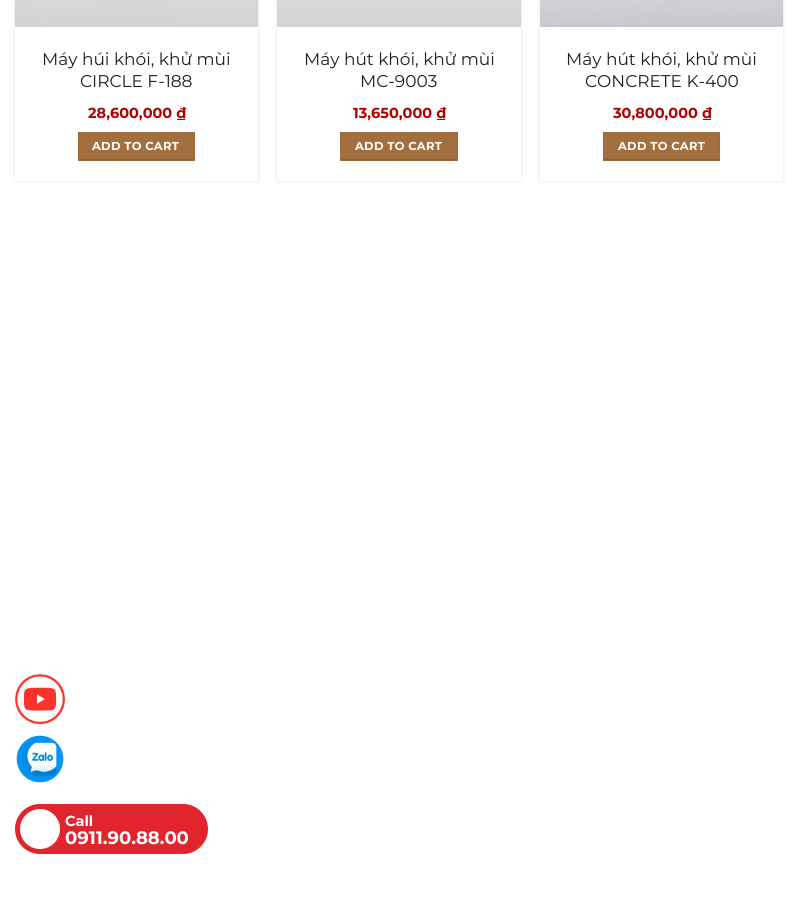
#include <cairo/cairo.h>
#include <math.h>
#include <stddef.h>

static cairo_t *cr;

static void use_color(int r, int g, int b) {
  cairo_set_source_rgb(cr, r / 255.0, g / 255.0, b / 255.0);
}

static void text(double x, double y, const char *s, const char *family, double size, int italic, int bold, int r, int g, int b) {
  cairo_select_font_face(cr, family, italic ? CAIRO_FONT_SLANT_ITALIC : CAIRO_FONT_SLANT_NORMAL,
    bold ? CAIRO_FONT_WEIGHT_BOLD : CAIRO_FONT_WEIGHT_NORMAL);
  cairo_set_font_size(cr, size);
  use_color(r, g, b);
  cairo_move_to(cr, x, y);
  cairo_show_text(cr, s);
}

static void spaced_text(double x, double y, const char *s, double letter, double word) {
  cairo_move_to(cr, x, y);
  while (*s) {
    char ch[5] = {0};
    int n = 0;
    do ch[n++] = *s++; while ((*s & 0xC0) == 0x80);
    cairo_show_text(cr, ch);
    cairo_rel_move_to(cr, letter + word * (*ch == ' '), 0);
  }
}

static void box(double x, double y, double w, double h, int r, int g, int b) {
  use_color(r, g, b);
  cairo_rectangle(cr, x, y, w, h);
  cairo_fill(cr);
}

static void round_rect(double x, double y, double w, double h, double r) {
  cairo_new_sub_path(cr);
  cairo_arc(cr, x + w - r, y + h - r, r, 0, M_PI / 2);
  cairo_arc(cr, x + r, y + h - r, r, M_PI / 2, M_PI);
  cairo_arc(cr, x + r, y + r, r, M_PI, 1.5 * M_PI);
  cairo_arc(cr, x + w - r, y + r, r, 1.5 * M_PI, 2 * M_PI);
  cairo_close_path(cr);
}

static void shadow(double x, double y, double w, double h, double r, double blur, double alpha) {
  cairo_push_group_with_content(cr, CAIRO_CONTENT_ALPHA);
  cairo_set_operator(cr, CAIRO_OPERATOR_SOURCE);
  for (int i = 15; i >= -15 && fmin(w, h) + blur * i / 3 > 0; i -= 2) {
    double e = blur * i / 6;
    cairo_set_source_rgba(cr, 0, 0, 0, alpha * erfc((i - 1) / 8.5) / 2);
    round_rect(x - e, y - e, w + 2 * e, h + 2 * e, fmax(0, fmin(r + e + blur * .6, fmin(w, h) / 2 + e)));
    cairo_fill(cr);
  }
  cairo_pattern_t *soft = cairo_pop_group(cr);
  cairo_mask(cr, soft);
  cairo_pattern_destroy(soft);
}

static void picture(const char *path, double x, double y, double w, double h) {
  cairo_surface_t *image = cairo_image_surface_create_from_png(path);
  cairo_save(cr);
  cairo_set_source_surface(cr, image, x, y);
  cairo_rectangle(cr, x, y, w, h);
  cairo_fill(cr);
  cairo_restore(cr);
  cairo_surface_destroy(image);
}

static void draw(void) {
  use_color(255, 255, 255);
  cairo_paint(cr);
  cairo_save(cr);
  cairo_set_fill_rule(cr, CAIRO_FILL_RULE_EVEN_ODD);
  cairo_new_path(cr);
  cairo_move_to(cr, 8, 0);
  cairo_line_to(cr, 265, 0);
  cairo_line_to(cr, 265, 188);
  cairo_line_to(cr, 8, 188);
  cairo_close_path(cr);
  cairo_move_to(cr, 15, -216);
  cairo_line_to(cr, 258, -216);
  cairo_line_to(cr, 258, 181);
  cairo_line_to(cr, 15, 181);
  cairo_close_path(cr);
  cairo_clip(cr);
  use_color(0, 0, 0);
  shadow(15, -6, 243, 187, 0, 2, 0.12);
  cairo_restore(cr);
  picture("img_01.png", 15, 0, 243, 27);
  box(79, 133, 115, 26, 163, 111, 63);
  cairo_rectangle(cr, 78.5, 132.5, 116, 28);
  use_color(155, 105, 60);
  cairo_set_line_width(cr, 1);
  cairo_stroke(cr);
  cairo_save(cr);
  cairo_rectangle(cr, 79, 133, 115, 27);
  cairo_clip(cr);
  use_color(139, 94, 54);
  cairo_set_fill_rule(cr, CAIRO_FILL_RULE_EVEN_ODD);
  cairo_new_path(cr);
  cairo_move_to(cr, -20, 34);
  cairo_line_to(cr, 293, 34);
  cairo_line_to(cr, 293, 259);
  cairo_line_to(cr, -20, 259);
  cairo_close_path(cr);
  cairo_move_to(cr, 79, 132);
  cairo_line_to(cr, 194, 132);
  cairo_line_to(cr, 194, 159);
  cairo_line_to(cr, 79, 159);
  cairo_close_path(cr);
  cairo_fill(cr);
  cairo_restore(cr);
  cairo_save(cr);
  cairo_set_fill_rule(cr, CAIRO_FILL_RULE_EVEN_ODD);
  cairo_new_path(cr);
  cairo_move_to(cr, 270, 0);
  cairo_line_to(cr, 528, 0);
  cairo_line_to(cr, 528, 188);
  cairo_line_to(cr, 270, 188);
  cairo_close_path(cr);
  cairo_move_to(cr, 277, -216);
  cairo_line_to(cr, 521, -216);
  cairo_line_to(cr, 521, 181);
  cairo_line_to(cr, 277, 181);
  cairo_close_path(cr);
  cairo_clip(cr);
  use_color(0, 0, 0);
  shadow(277, -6, 244, 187, 0, 2, 0.12);
  cairo_restore(cr);
  picture("img_02.png", 277, 0, 244, 27);
  box(341, 133, 116, 26, 163, 111, 63);
  cairo_rectangle(cr, 340.5, 132.5, 117, 28);
  use_color(155, 105, 60);
  cairo_stroke(cr);
  cairo_save(cr);
  cairo_rectangle(cr, 341, 133, 116, 27);
  cairo_clip(cr);
  use_color(139, 94, 54);
  cairo_set_fill_rule(cr, CAIRO_FILL_RULE_EVEN_ODD);
  cairo_new_path(cr);
  cairo_move_to(cr, 242, 34);
  cairo_line_to(cr, 556, 34);
  cairo_line_to(cr, 556, 259);
  cairo_line_to(cr, 242, 259);
  cairo_close_path(cr);
  cairo_move_to(cr, 341, 132);
  cairo_line_to(cr, 457, 132);
  cairo_line_to(cr, 457, 159);
  cairo_line_to(cr, 341, 159);
  cairo_close_path(cr);
  cairo_fill(cr);
  cairo_restore(cr);
  cairo_save(cr);
  cairo_set_fill_rule(cr, CAIRO_FILL_RULE_EVEN_ODD);
  cairo_new_path(cr);
  cairo_move_to(cr, 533, 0);
  cairo_line_to(cr, 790, 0);
  cairo_line_to(cr, 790, 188);
  cairo_line_to(cr, 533, 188);
  cairo_close_path(cr);
  cairo_move_to(cr, 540, -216);
  cairo_line_to(cr, 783, -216);
  cairo_line_to(cr, 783, 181);
  cairo_line_to(cr, 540, 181);
  cairo_close_path(cr);
  cairo_clip(cr);
  use_color(0, 0, 0);
  shadow(540, -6, 243, 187, 0, 2, 0.12);
  cairo_restore(cr);
  picture("img_03.png", 540, 0, 243, 27);
  box(604, 133, 115, 26, 163, 111, 63);
  cairo_rectangle(cr, 603.5, 132.5, 116, 28);
  use_color(155, 105, 60);
  cairo_stroke(cr);
  cairo_save(cr);
  cairo_rectangle(cr, 604, 133, 115, 27);
  cairo_clip(cr);
  use_color(139, 94, 54);
  cairo_set_fill_rule(cr, CAIRO_FILL_RULE_EVEN_ODD);
  cairo_new_path(cr);
  cairo_move_to(cr, 505, 34);
  cairo_line_to(cr, 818, 34);
  cairo_line_to(cr, 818, 259);
  cairo_line_to(cr, 505, 259);
  cairo_close_path(cr);
  cairo_move_to(cr, 604, 132);
  cairo_line_to(cr, 719, 132);
  cairo_line_to(cr, 719, 159);
  cairo_line_to(cr, 604, 159);
  cairo_close_path(cr);
  cairo_fill(cr);
  cairo_restore(cr);
  picture("img_04.png", 15, 674, 50, 50);
  picture("img_05.png", 16, 735, 48, 48);
  use_color(226, 36, 44);
  round_rect(15, 804, 193, 50, 25);
  cairo_fill(cr);
  use_color(255, 255, 255);
  cairo_arc(cr, 40, 829, 20, 0, 2 * M_PI);
  cairo_fill(cr);
  text(42, 65, "Máy húi khói, khử mùi", "Montserrat", 17, 0, 0, 31, 31, 31);
  text(80, 87, "CIRCLE F-188", "Montserrat", 17, 0, 0, 31, 31, 31);
  text(88, 118, "28,600,000 ₫", "Montserrat", 14.5, 0, 1, 178, 0, 0);
  cairo_set_font_size(cr, 11.5);
  use_color(255, 255, 255);
  spaced_text(92, 150, "ADD TO CART", 0.3, 0);
  text(304, 65, "Máy hút khói, khử mùi", "Montserrat", 17, 0, 0, 31, 31, 31);
  text(360, 87, "MC-9003", "Montserrat", 17, 0, 0, 31, 31, 31);
  text(353, 118, "13,650,000 ₫", "Montserrat", 14.5, 0, 1, 178, 0, 0);
  cairo_set_font_size(cr, 11.5);
  use_color(255, 255, 255);
  spaced_text(355, 150, "ADD TO CART", 0.3, 0);
  text(566, 65, "Máy hút khói, khử mùi", "Montserrat", 17, 0, 0, 31, 31, 31);
  text(585, 87, "CONCRETE K-400", "Montserrat", 17, 0, 0, 31, 31, 31);
  text(613, 118, "30,800,000 ₫", "Montserrat", 14.5, 0, 1, 178, 0, 0);
  cairo_set_font_size(cr, 11.5);
  use_color(255, 255, 255);
  spaced_text(618, 150, "ADD TO CART", 0.3, 0);
  text(65, 826, "Call", "Montserrat", 14.5, 0, 1, 255, 255, 255);
  text(65, 844, "0911.90.88.00", "Montserrat", 18, 0, 1, 255, 255, 255);
}

int main(void) {
  cairo_surface_t *surface = cairo_image_surface_create(CAIRO_FORMAT_RGB24, 798, 904);
  cr = cairo_create(surface);
  cairo_font_options_t *options = cairo_font_options_create();
  cairo_font_options_set_hint_metrics(options, CAIRO_HINT_METRICS_OFF);
  cairo_font_options_set_hint_style(options, CAIRO_HINT_STYLE_NONE);
  cairo_set_font_options(cr, options);
  cairo_set_miter_limit(cr, 4);
  draw();
  cairo_surface_write_to_png(surface, "out.png");
  cairo_font_options_destroy(options);
  cairo_destroy(cr);
  cairo_surface_destroy(surface);
  return 0;
}
